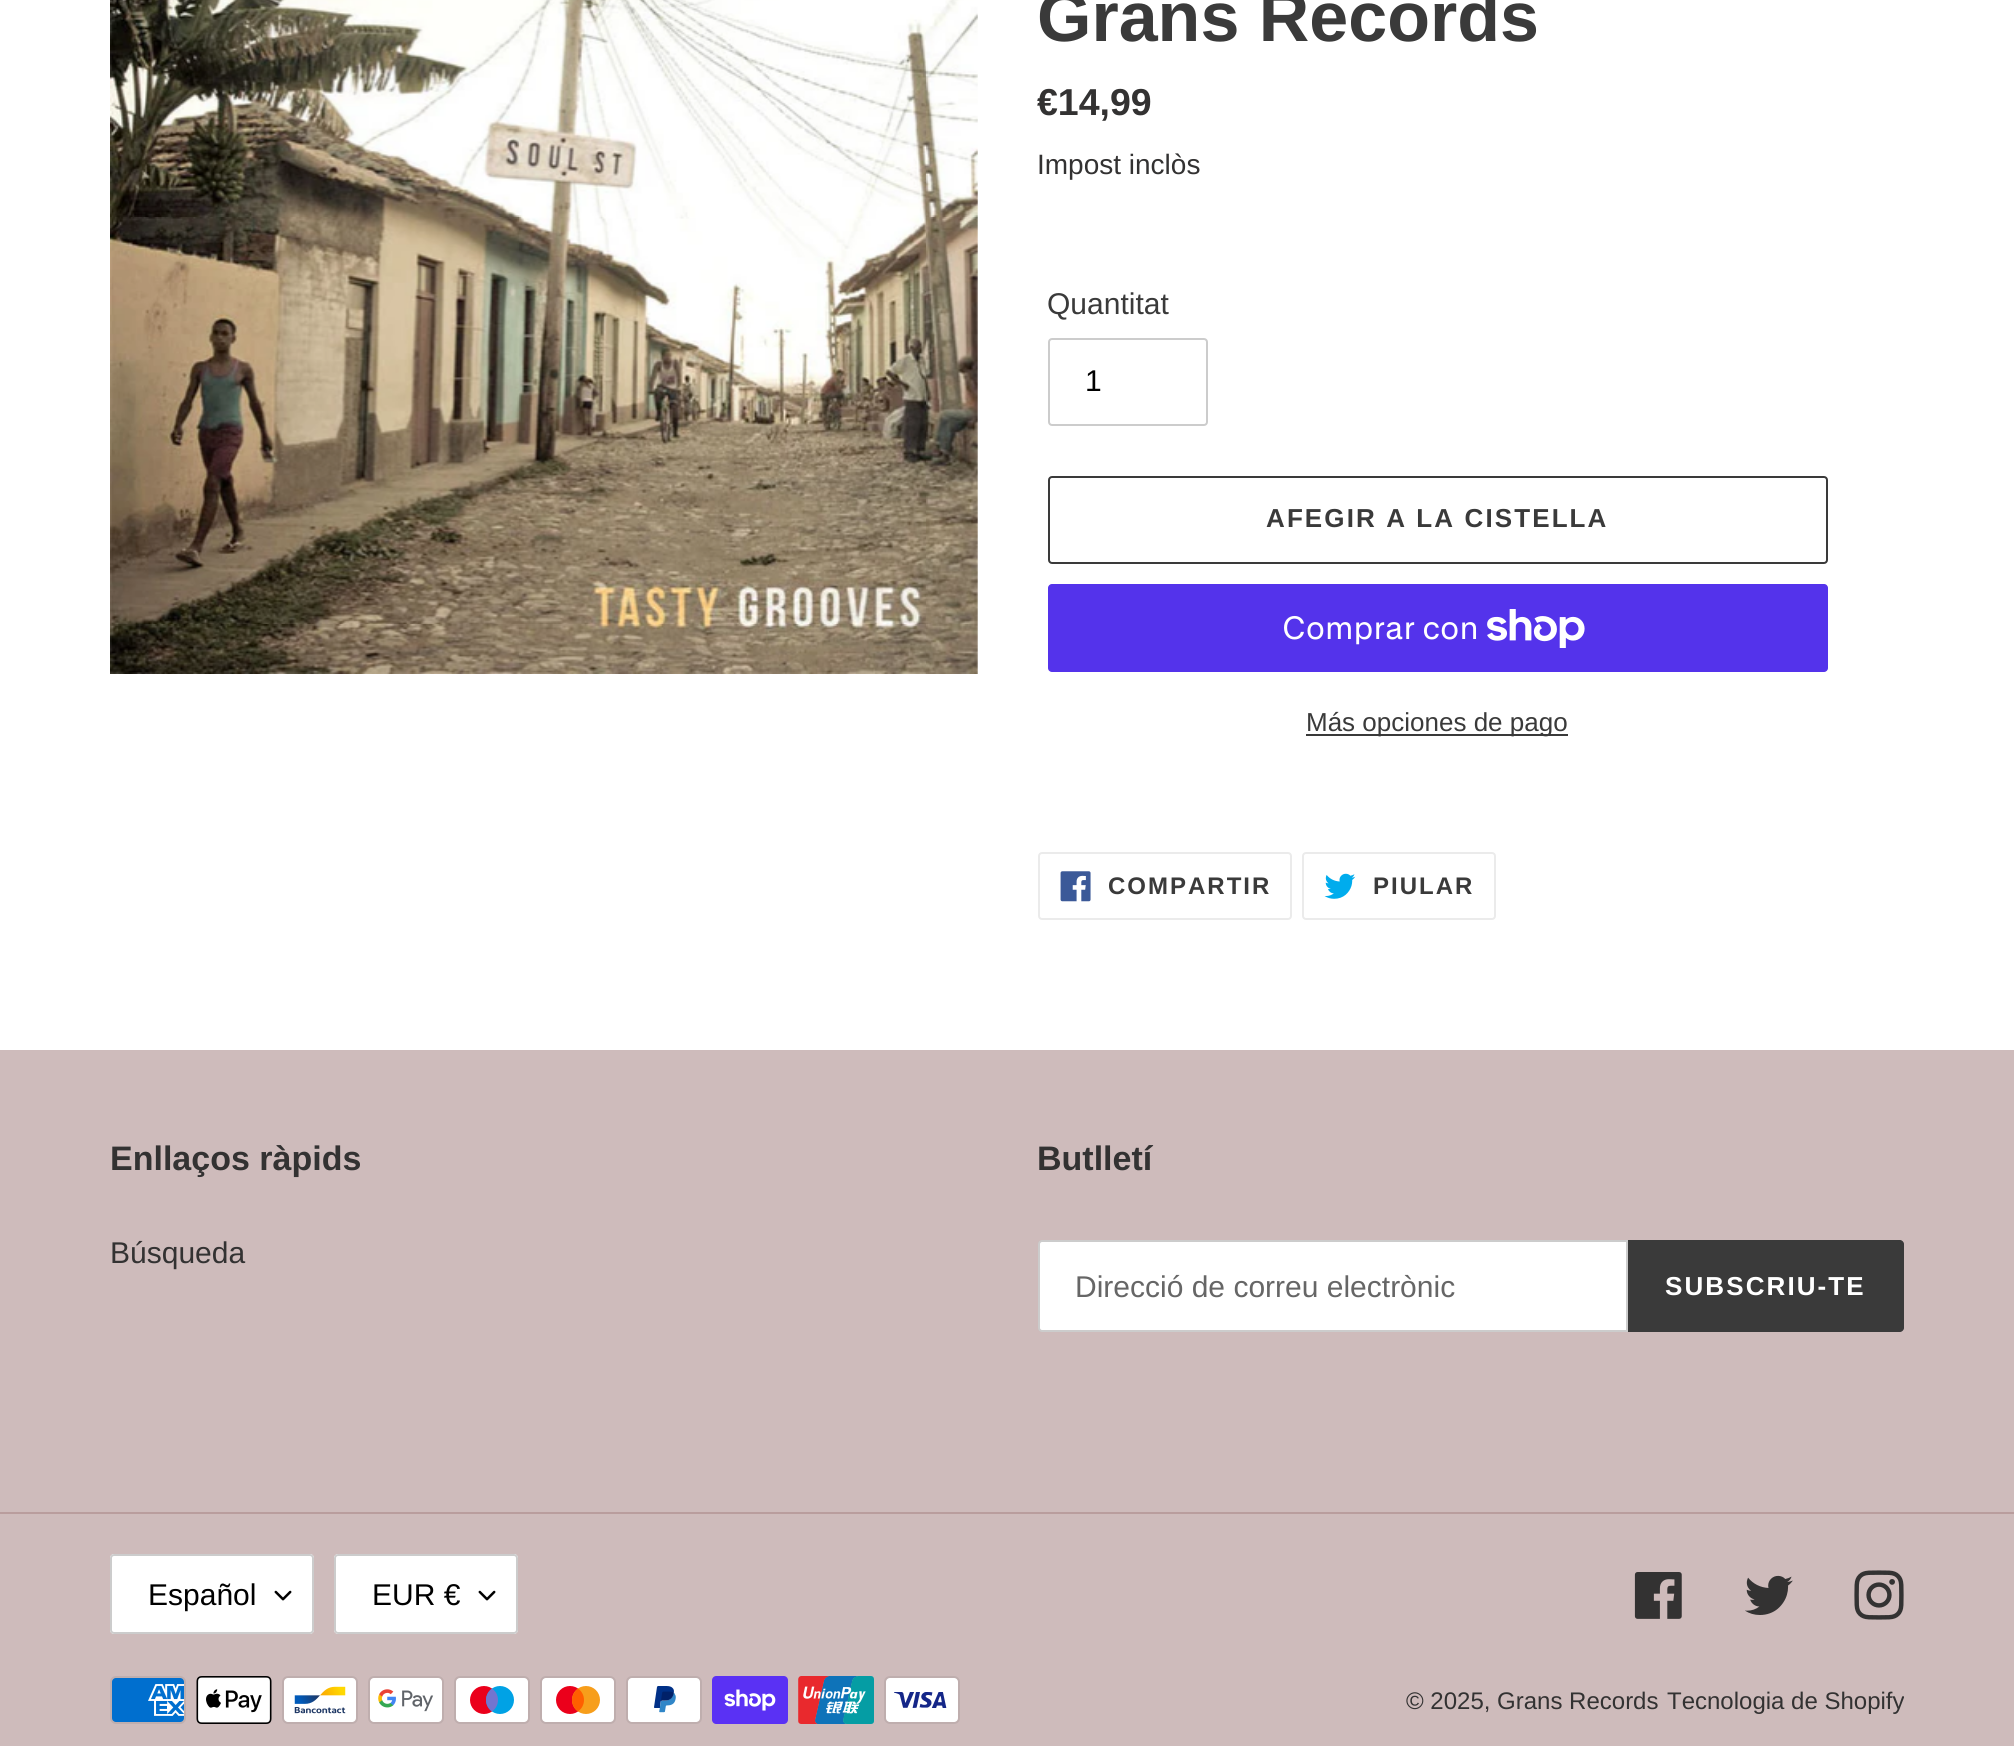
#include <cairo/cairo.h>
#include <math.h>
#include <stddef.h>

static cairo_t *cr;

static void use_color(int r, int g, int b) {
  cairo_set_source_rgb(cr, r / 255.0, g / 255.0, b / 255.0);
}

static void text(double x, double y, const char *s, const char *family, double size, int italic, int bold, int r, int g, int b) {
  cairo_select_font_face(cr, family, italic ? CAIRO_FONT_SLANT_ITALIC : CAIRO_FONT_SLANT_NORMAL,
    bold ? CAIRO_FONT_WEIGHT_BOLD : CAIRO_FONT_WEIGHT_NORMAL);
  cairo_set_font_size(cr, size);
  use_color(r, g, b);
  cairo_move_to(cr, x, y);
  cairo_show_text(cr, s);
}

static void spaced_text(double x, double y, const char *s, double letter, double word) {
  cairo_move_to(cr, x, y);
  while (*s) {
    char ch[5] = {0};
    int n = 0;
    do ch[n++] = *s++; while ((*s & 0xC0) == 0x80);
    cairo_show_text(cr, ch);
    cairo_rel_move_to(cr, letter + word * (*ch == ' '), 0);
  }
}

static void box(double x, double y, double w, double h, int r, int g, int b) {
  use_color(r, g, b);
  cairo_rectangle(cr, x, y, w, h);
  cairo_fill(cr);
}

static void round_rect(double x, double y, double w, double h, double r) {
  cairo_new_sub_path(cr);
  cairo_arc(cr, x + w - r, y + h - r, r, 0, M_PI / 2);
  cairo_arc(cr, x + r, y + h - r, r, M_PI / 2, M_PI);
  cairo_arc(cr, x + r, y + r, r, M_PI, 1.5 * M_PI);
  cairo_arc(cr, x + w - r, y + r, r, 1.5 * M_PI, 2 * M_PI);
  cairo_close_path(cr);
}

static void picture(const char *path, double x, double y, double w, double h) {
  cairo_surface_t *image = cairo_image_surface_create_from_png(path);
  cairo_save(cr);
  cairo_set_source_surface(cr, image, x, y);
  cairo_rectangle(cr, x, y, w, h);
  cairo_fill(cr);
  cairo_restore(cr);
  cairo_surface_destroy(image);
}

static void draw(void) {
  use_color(255, 255, 255);
  cairo_paint(cr);
  picture("img_01.png", 110, 0, 868, 674);
  round_rect(1049, 339, 158, 86, 3);
  use_color(204, 204, 204);
  cairo_stroke(cr);
  round_rect(1049, 477, 778, 86, 3);
  use_color(58, 58, 58);
  cairo_stroke(cr);
  use_color(84, 51, 235);
  round_rect(1048, 584, 780, 88, 4);
  cairo_fill(cr);
  picture("img_02.png", 1487, 609, 98, 39);
  box(1306, 734, 262, 2, 58, 58, 58);
  round_rect(1039, 853, 252, 66, 3);
  use_color(235, 235, 235);
  cairo_stroke(cr);
  picture("img_03.png", 1060, 871, 31, 31);
  round_rect(1303, 853, 192, 66, 3);
  cairo_stroke(cr);
  picture("img_04.png", 1324, 873, 32, 26);
  box(0, 1050, 2014, 696, 206, 187, 187);
  use_color(255, 255, 255);
  cairo_new_path(cr);
  cairo_move_to(cr, 1042, 1241);
  cairo_line_to(cr, 1627, 1241);
  cairo_line_to(cr, 1627, 1331);
  cairo_line_to(cr, 1042, 1331);
  cairo_curve_to(cr, 1040.5, 1331, 1039, 1329.5, 1039, 1328);
  cairo_line_to(cr, 1039, 1244);
  cairo_curve_to(cr, 1039, 1242.5, 1040.5, 1241, 1042, 1241);
  cairo_close_path(cr);
  cairo_fill_preserve(cr);
  use_color(204, 204, 204);
  cairo_stroke(cr);
  use_color(58, 58, 58);
  cairo_new_path(cr);
  cairo_move_to(cr, 1628, 1240);
  cairo_line_to(cr, 1900, 1240);
  cairo_curve_to(cr, 1902, 1240, 1904, 1242, 1904, 1244);
  cairo_line_to(cr, 1904, 1328);
  cairo_curve_to(cr, 1904, 1330, 1902, 1332, 1900, 1332);
  cairo_line_to(cr, 1628, 1332);
  cairo_close_path(cr);
  cairo_fill(cr);
  box(0, 1512, 2014, 2, 185, 157, 157);
  use_color(255, 255, 255);
  round_rect(110, 1554, 204, 80, 4);
  cairo_fill(cr);
  picture("img_05.png", 274, 1590, 18, 11);
  round_rect(111, 1555, 202, 78, 3);
  use_color(204, 204, 204);
  cairo_stroke(cr);
  use_color(255, 255, 255);
  round_rect(334, 1554, 184, 80, 4);
  cairo_fill(cr);
  picture("img_05.png", 478, 1590, 18, 11);
  round_rect(335, 1555, 182, 78, 3);
  use_color(204, 204, 204);
  cairo_stroke(cr);
  picture("img_06.png", 1634, 1572, 48, 47);
  picture("img_07.png", 1745, 1575, 48, 40);
  picture("img_08.png", 1854, 1570, 50, 50);
  picture("img_09.png", 110, 1676, 76, 48);
  picture("img_10.png", 196, 1676, 76, 48);
  picture("img_11.png", 282, 1676, 76, 48);
  picture("img_12.png", 368, 1676, 76, 48);
  picture("img_13.png", 454, 1676, 76, 48);
  picture("img_14.png", 540, 1676, 76, 48);
  picture("img_15.png", 626, 1676, 76, 48);
  picture("img_16.png", 712, 1676, 76, 48);
  picture("img_17.png", 798, 1676, 76, 48);
  picture("img_18.png", 884, 1676, 76, 48);
  text(1037, 41, "Grans Records", "Liberation Sans", 70, 0, 1, 58, 58, 58);
  text(1037, 115, "€14,99", "Liberation Sans", 37.5, 0, 1, 51, 50, 50);
  text(1037, 174, "Impost inclòs", "Liberation Sans", 28, 0, 0, 51, 50, 50);
  text(1047, 314, "Quantitat", "Liberation Sans", 30, 0, 0, 58, 58, 58);
  text(1085, 391, "1", "Liberation Sans", 30, 0, 0, 0, 0, 0);
  cairo_select_font_face(cr, "Liberation Sans", CAIRO_FONT_SLANT_NORMAL, CAIRO_FONT_WEIGHT_BOLD);
  cairo_set_font_size(cr, 26);
  use_color(58, 58, 58);
  spaced_text(1266, 527, "AFEGIR A LA CISTELLA", 2.1, 0);
  text(1282, 639, "Comprar con", "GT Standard", 32, 0, 0, 255, 255, 255);
  text(1306, 731, "Más opciones de pago", "Liberation Sans", 26, 0, 0, 58, 58, 58);
  cairo_select_font_face(cr, "Liberation Sans", CAIRO_FONT_SLANT_NORMAL, CAIRO_FONT_WEIGHT_BOLD);
  cairo_set_font_size(cr, 24);
  spaced_text(1108, 894, "COMPARTIR", 2, 0);
  spaced_text(1373, 894, "PIULAR", 2, 0);
  text(110, 1170, "Enllaços ràpids", "Liberation Sans", 34, 0, 1, 51, 50, 50);
  text(110, 1263, "Búsqueda", "Liberation Sans", 30, 0, 0, 51, 50, 50);
  text(1037, 1170, "Butlletí", "Liberation Sans", 34, 0, 1, 51, 50, 50);
  text(1075, 1297, "Direcció de correu electrònic", "Liberation Sans", 30, 0, 0, 102, 102, 102);
  cairo_select_font_face(cr, "Liberation Sans", CAIRO_FONT_SLANT_NORMAL, CAIRO_FONT_WEIGHT_BOLD);
  cairo_set_font_size(cr, 26);
  use_color(255, 255, 255);
  spaced_text(1665, 1295, "SUBSCRIU-TE", 2.1, 0);
  text(148, 1605, "Español", "Liberation Sans", 30, 0, 0, 0, 0, 0);
  text(372, 1605, "EUR €", "Liberation Sans", 30, 0, 0, 0, 0, 0);
  text(1406, 1709, "© 2025, Grans Records", "Liberation Sans", 24, 0, 0, 51, 50, 50);
  text(1667, 1709, "Tecnologia de Shopify", "Liberation Sans", 24, 0, 0, 51, 50, 50);
}

int main(void) {
  cairo_surface_t *surface = cairo_image_surface_create(CAIRO_FORMAT_RGB24, 2014, 1746);
  cr = cairo_create(surface);
  cairo_font_options_t *options = cairo_font_options_create();
  cairo_font_options_set_hint_metrics(options, CAIRO_HINT_METRICS_OFF);
  cairo_font_options_set_hint_style(options, CAIRO_HINT_STYLE_NONE);
  cairo_set_font_options(cr, options);
  cairo_set_miter_limit(cr, 4);
  draw();
  cairo_surface_write_to_png(surface, "out.png");
  cairo_font_options_destroy(options);
  cairo_destroy(cr);
  cairo_surface_destroy(surface);
  return 0;
}
